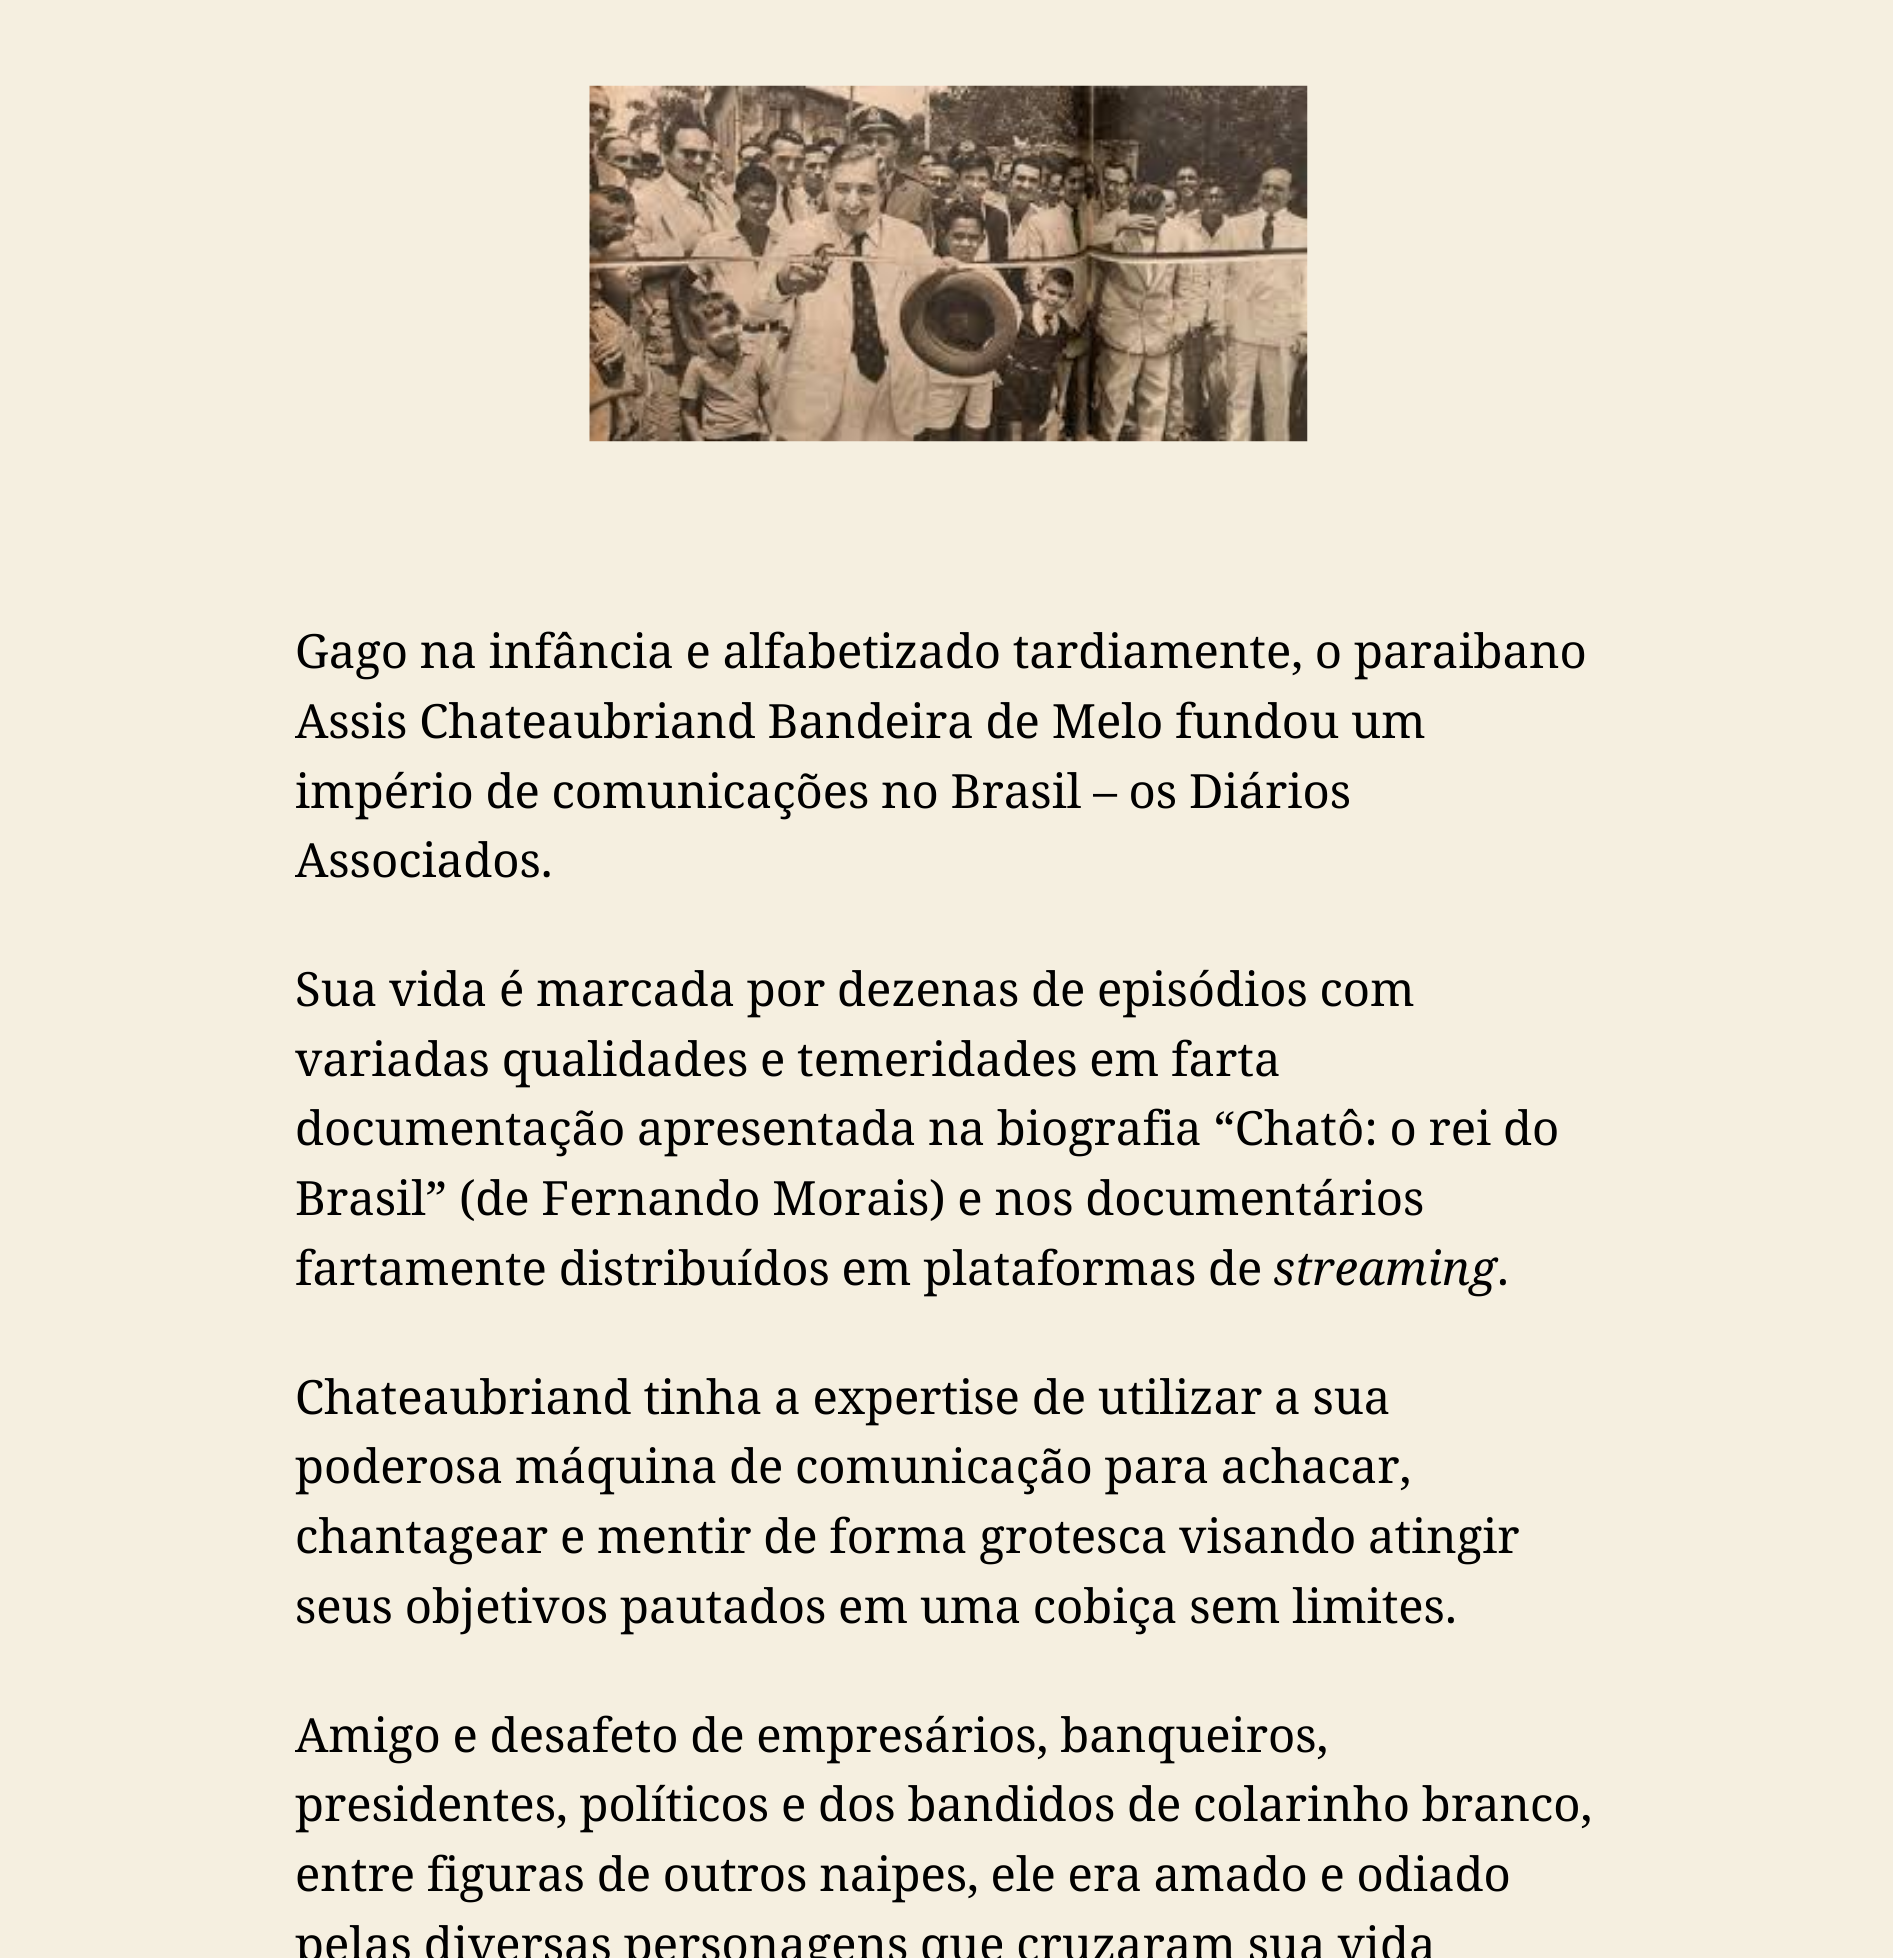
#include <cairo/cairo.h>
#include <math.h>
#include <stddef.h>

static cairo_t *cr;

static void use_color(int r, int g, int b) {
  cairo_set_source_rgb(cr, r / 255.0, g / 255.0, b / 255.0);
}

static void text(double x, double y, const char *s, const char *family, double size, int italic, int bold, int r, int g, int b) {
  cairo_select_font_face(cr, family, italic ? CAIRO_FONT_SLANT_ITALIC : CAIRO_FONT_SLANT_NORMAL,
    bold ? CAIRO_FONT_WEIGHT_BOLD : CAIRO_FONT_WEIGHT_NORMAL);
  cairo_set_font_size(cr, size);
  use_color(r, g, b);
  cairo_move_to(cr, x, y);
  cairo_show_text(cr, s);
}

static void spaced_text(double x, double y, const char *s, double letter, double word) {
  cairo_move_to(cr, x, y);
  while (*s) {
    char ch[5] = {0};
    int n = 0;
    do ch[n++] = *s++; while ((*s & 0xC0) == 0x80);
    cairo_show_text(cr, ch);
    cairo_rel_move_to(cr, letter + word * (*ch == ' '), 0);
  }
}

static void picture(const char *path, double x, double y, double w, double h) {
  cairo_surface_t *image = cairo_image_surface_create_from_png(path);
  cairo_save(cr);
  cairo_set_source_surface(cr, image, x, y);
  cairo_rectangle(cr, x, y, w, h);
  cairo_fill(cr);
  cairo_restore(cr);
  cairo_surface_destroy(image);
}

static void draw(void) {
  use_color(245, 239, 224);
  cairo_paint(cr);
  picture("img_01.png", 589, 85, 719, 357);
  cairo_select_font_face(cr, "Noto Serif", CAIRO_FONT_SLANT_NORMAL, CAIRO_FONT_WEIGHT_NORMAL);
  cairo_set_font_size(cr, 47.25);
  use_color(0, 0, 0);
  spaced_text(295, 668, "Gago na infância e alfabetizado tardiamente, o paraibano", 0, -0.5);
  spaced_text(295, 738, "Assis Chateaubriand Bandeira de Melo fundou um", 0, -0.5);
  spaced_text(295, 808, "império de comunicações no Brasil – os Diários", 0, -0.5);
  text(295, 877, "Associados.", "Noto Serif", 47.25, 0, 0, 0, 0, 0);
  spaced_text(295, 1006, "Sua vida é marcada por dezenas de episódios com", 0, -0.5);
  spaced_text(295, 1076, "variadas qualidades e temeridades em farta", 0, -0.5);
  spaced_text(295, 1145, "documentação apresentada na biografia “Chatô: o rei do", 0, -0.5);
  spaced_text(295, 1215, "Brasil” (de Fernando Morais) e nos documentários", 0, -0.5);
  spaced_text(295, 1285, "fartamente distribuídos em plataformas de", 0, -0.5);
  text(1273, 1285, "streaming", "Noto Serif", 47.25, 1, 0, 0, 0, 0);
  text(1497, 1285, ".", "Noto Serif", 47.25, 0, 0, 0, 0, 0);
  spaced_text(295, 1414, "Chateaubriand tinha a expertise de utilizar a sua", 0, -0.5);
  spaced_text(295, 1483, "poderosa máquina de comunicação para achacar,", 0, -0.5);
  spaced_text(295, 1553, "chantagear e mentir de forma grotesca visando atingir", 0, -0.5);
  spaced_text(295, 1623, "seus objetivos pautados em uma cobiça sem limites.", 0, -0.5);
  spaced_text(295, 1752, "Amigo e desafeto de empresários, banqueiros,", 0, -0.5);
  spaced_text(295, 1821, "presidentes, políticos e dos bandidos de colarinho branco,", 0, -0.5);
  spaced_text(295, 1891, "entre figuras de outros naipes, ele era amado e odiado", 0, -0.5);
  spaced_text(295, 1961, "pelas diversas personagens que cruzaram sua vida", 0, -0.5);
}

int main(void) {
  cairo_surface_t *surface = cairo_image_surface_create(CAIRO_FORMAT_RGB24, 1893, 1958);
  cr = cairo_create(surface);
  cairo_font_options_t *options = cairo_font_options_create();
  cairo_font_options_set_hint_metrics(options, CAIRO_HINT_METRICS_OFF);
  cairo_font_options_set_hint_style(options, CAIRO_HINT_STYLE_NONE);
  cairo_set_font_options(cr, options);
  cairo_set_miter_limit(cr, 4);
  draw();
  cairo_surface_write_to_png(surface, "out.png");
  cairo_font_options_destroy(options);
  cairo_destroy(cr);
  cairo_surface_destroy(surface);
  return 0;
}
